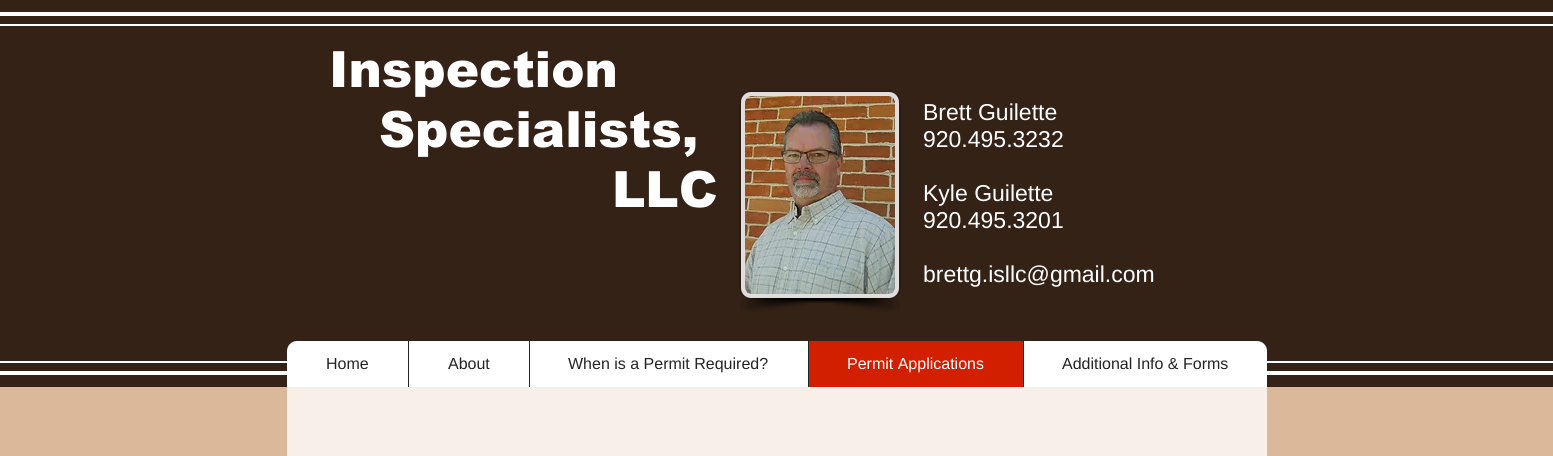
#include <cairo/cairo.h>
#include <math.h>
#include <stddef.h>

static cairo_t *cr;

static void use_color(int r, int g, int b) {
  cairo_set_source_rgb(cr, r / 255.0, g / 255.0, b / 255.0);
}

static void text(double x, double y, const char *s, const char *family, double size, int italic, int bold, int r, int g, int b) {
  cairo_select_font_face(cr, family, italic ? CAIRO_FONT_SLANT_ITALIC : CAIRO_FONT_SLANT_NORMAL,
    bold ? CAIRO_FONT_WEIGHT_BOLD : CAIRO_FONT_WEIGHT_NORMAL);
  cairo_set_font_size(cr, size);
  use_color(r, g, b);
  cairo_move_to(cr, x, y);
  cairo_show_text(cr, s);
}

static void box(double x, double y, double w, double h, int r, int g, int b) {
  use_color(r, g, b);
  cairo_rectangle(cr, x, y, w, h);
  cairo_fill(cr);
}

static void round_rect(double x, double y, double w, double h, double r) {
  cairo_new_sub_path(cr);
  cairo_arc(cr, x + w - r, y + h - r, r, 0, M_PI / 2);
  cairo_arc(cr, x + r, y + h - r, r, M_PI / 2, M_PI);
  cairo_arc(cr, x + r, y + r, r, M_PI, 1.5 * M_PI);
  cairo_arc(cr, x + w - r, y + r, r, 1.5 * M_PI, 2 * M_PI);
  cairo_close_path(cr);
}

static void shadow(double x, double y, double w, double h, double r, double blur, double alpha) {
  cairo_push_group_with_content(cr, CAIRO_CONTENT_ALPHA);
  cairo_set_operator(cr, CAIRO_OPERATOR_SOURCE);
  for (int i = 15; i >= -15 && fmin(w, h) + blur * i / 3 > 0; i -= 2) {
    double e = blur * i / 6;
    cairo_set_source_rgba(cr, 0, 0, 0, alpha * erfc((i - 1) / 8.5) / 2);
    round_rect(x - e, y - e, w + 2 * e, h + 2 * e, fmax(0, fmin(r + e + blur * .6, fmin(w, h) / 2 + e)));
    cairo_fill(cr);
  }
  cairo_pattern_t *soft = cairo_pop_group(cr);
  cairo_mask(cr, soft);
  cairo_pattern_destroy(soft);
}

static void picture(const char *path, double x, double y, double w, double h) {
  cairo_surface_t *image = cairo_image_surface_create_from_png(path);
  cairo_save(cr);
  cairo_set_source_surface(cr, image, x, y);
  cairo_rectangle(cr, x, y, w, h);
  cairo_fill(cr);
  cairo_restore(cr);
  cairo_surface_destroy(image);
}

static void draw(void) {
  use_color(219, 184, 154);
  cairo_paint(cr);
  box(0, 0, 1553, 387, 52, 34, 22);
  box(0, 12, 1553, 4, 255, 255, 255);
  box(0, 371, 1553, 4, 255, 255, 255);
  box(0, 24, 1553, 2, 255, 255, 255);
  box(0, 361, 1553, 2, 255, 255, 255);
  use_color(0, 0, 0);
  shadow(741, 92, 158, 206, 10, 1.5, 0.5);
  use_color(224, 221, 221);
  round_rect(743, 94, 154, 202, 8);
  cairo_fill_preserve(cr);
  cairo_set_line_width(cr, 4);
  cairo_stroke(cr);
  picture("img_01.png", 745, 96, 150, 198);
  picture("img_02.png", 740, 298, 126, 14);
  picture("img_03.png", 804, 298, 96, 14);
  use_color(255, 255, 255);
  cairo_new_path(cr);
  cairo_move_to(cr, 297, 341);
  cairo_line_to(cr, 1257, 341);
  cairo_curve_to(cr, 1262.5, 341, 1267, 345.5, 1267, 351);
  cairo_line_to(cr, 1267, 387);
  cairo_line_to(cr, 287, 387);
  cairo_line_to(cr, 287, 351);
  cairo_curve_to(cr, 287, 345.5, 291.5, 341, 297, 341);
  cairo_close_path(cr);
  cairo_fill(cr);
  box(408, 341, 1, 46, 37, 36, 36);
  box(529, 341, 1, 46, 37, 36, 36);
  box(809, 341, 214, 46, 209, 31, 0);
  box(808, 341, 1, 46, 37, 36, 36);
  box(1023, 341, 1, 46, 37, 36, 36);
  box(287, 387, 980, 69, 247, 239, 232);
  text(329, 87, "Inspection", "arial Black", 50, 0, 0, 255, 255, 255);
  text(379, 147, "Specialists,", "arial Black", 50, 0, 0, 255, 255, 255);
  text(612, 207, "LLC", "arial Black", 50, 0, 0, 255, 255, 255);
  text(923, 120, "Brett Guilette", "Liberation Sans", 23, 0, 0, 255, 255, 255);
  text(923, 147, "920.495.3232", "Liberation Sans", 23, 0, 0, 255, 255, 255);
  text(923, 201, "Kyle Guilette", "Liberation Sans", 23, 0, 0, 255, 255, 255);
  text(923, 228, "920.495.3201", "Liberation Sans", 23, 0, 0, 255, 255, 255);
  text(923, 282, "brettg.isllc@gmail.com", "Liberation Sans", 23, 0, 0, 255, 255, 255);
  text(326, 369, "Home", "Liberation Sans", 16, 0, 0, 37, 36, 36);
  text(448, 369, "About", "Liberation Sans", 16, 0, 0, 37, 36, 36);
  text(568, 369, "When is a Permit Required?", "Liberation Sans", 16, 0, 0, 37, 36, 36);
  text(847, 369, "Permit Applications", "Liberation Sans", 16, 0, 0, 255, 255, 255);
  text(1062, 369, "Additional Info & Forms", "Liberation Sans", 16, 0, 0, 37, 36, 36);
}

int main(void) {
  cairo_surface_t *surface = cairo_image_surface_create(CAIRO_FORMAT_RGB24, 1553, 456);
  cr = cairo_create(surface);
  cairo_font_options_t *options = cairo_font_options_create();
  cairo_font_options_set_hint_metrics(options, CAIRO_HINT_METRICS_OFF);
  cairo_font_options_set_hint_style(options, CAIRO_HINT_STYLE_NONE);
  cairo_set_font_options(cr, options);
  cairo_set_miter_limit(cr, 4);
  draw();
  cairo_surface_write_to_png(surface, "out.png");
  cairo_font_options_destroy(options);
  cairo_destroy(cr);
  cairo_surface_destroy(surface);
  return 0;
}
